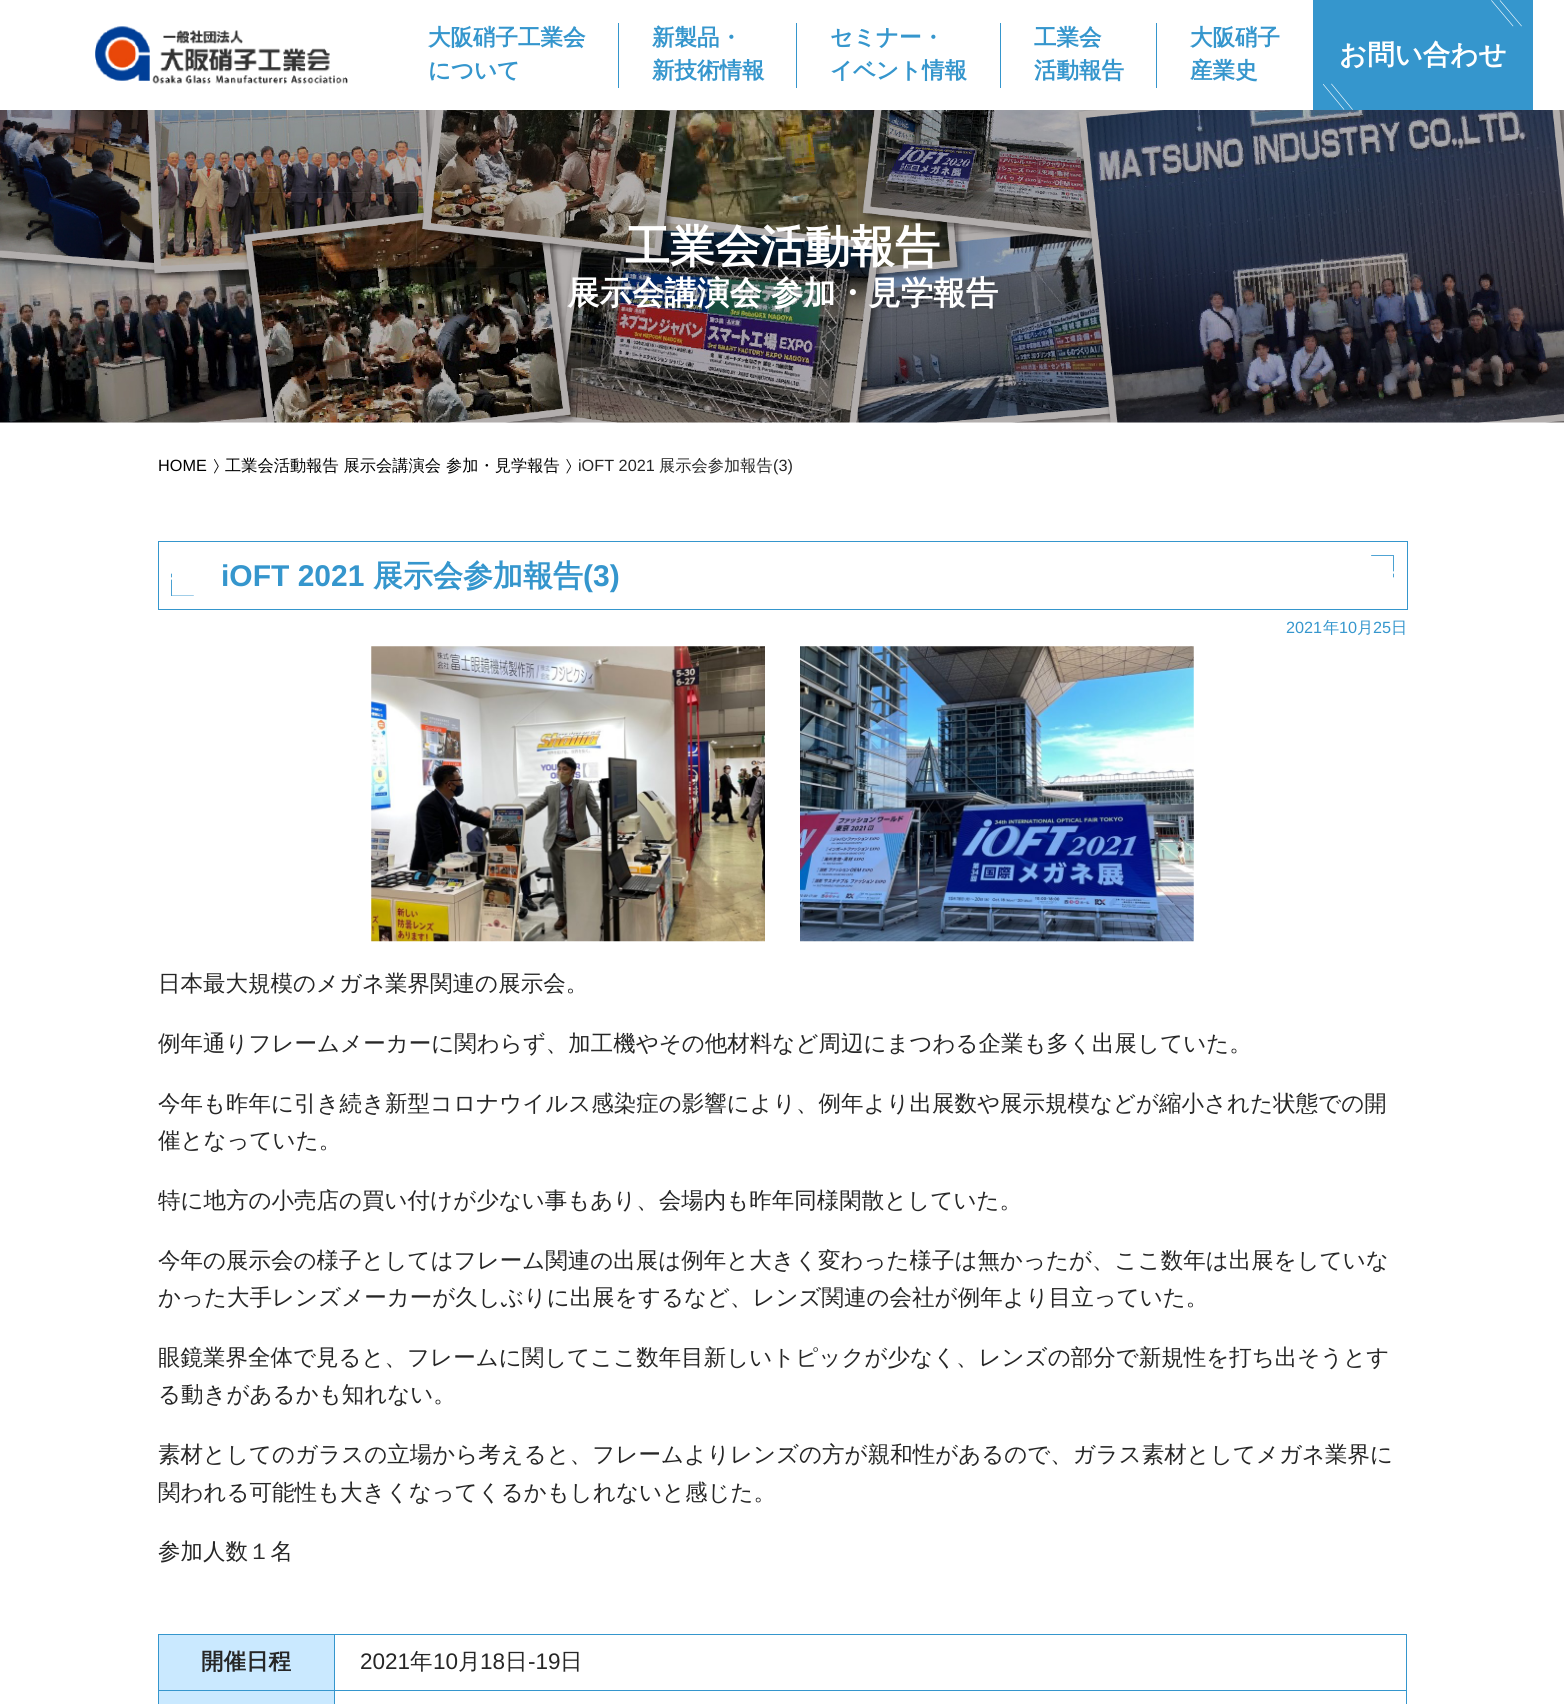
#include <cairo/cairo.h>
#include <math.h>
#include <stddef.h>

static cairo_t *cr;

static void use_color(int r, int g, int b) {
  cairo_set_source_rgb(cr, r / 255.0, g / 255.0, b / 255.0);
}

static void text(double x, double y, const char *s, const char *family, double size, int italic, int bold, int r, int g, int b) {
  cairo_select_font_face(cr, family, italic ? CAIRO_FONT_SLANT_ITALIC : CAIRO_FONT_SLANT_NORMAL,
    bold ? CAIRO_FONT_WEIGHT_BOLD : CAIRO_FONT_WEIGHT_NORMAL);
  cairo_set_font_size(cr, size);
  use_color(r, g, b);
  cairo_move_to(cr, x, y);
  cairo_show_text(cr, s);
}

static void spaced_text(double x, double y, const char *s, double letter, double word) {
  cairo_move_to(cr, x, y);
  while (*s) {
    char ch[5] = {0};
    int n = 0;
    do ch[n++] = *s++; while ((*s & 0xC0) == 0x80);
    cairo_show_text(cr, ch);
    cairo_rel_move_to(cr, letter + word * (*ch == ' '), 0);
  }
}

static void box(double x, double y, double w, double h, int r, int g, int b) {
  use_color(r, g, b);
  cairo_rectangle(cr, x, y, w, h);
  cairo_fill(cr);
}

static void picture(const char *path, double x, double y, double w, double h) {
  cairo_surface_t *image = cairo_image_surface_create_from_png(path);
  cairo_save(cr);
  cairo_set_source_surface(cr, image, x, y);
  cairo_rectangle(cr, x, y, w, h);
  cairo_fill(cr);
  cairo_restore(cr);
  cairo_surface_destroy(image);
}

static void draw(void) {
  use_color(255, 255, 255);
  cairo_paint(cr);
  picture("img_01.png", 95, 26, 253, 59);
  box(618, 23, 1, 65, 53, 150, 205);
  box(796, 23, 1, 65, 53, 150, 205);
  box(1000, 23, 1, 65, 53, 150, 205);
  box(1156, 23, 1, 65, 53, 150, 205);
  box(1313, 0, 220, 110, 53, 150, 205);
  cairo_new_path(cr);
  cairo_move_to(cr, 1491.5, 0.5);
  cairo_line_to(cr, 1513, 26);
  cairo_move_to(cr, 1500, 0.5);
  cairo_line_to(cr, 1521.5, 26);
  use_color(255, 255, 255);
  cairo_set_line_width(cr, 0.6);
  cairo_set_line_cap(cr, CAIRO_LINE_CAP_ROUND);
  cairo_set_line_join(cr, CAIRO_LINE_JOIN_ROUND);
  cairo_stroke(cr);
  cairo_save(cr);
  cairo_rectangle(cr, 1323, 84, 30, 26);
  cairo_clip(cr);
  cairo_new_path(cr);
  cairo_move_to(cr, 1323, 84);
  cairo_line_to(cr, 1344, 109.5);
  cairo_stroke(cr);
  cairo_restore(cr);
  cairo_new_path(cr);
  cairo_move_to(cr, 1331.5, 84);
  cairo_line_to(cr, 1352.5, 109.5);
  cairo_stroke(cr);
  picture("img_02.png", 0, 110, 1564, 313);
  picture("img_03.png", 214, 459, 5, 15);
  picture("img_04.png", 566, 459, 5, 15);
  cairo_new_path(cr);
  cairo_move_to(cr, 1393.5, 574);
  cairo_line_to(cr, 1393.5, 577);
  cairo_move_to(cr, 1371.5, 555.5);
  cairo_line_to(cr, 1393.5, 555.5);
  cairo_line_to(cr, 1393.5, 571);
  use_color(53, 150, 205);
  cairo_set_line_width(cr, 0.9);
  cairo_stroke(cr);
  cairo_new_path(cr);
  cairo_move_to(cr, 171.5, 577);
  cairo_line_to(cr, 171.5, 574);
  cairo_stroke(cr);
  cairo_save(cr);
  cairo_rectangle(cr, 171, 574, 23, 22);
  cairo_clip(cr);
  cairo_new_path(cr);
  cairo_move_to(cr, 193.5, 596);
  cairo_line_to(cr, 171.5, 596);
  cairo_line_to(cr, 171.5, 580);
  cairo_stroke(cr);
  cairo_restore(cr);
  cairo_rectangle(cr, 158.5, 541.5, 1249, 68);
  cairo_set_line_width(cr, 1);
  cairo_set_line_cap(cr, CAIRO_LINE_CAP_BUTT);
  cairo_set_line_join(cr, CAIRO_LINE_JOIN_MITER);
  cairo_stroke(cr);
  picture("img_05.png", 371, 646, 394, 296);
  picture("img_06.png", 800, 646, 394, 296);
  box(1406, 1634, 1, 70, 53, 150, 205);
  box(159, 1635, 175, 55, 202, 233, 255);
  box(158, 1634, 1248, 1, 53, 150, 205);
  box(158, 1634, 1, 56, 53, 150, 205);
  box(334, 1634, 1, 56, 53, 150, 205);
  box(159, 1691, 175, 13, 202, 233, 255);
  box(158, 1690, 1248, 1, 53, 150, 205);
  box(158, 1690, 1, 14, 53, 150, 205);
  box(334, 1690, 1, 14, 53, 150, 205);
  text(428, 45, "大阪硝子工業会", "WenQuanYi Zen Hei", 22.5, 0, 1, 53, 150, 205);
  text(428, 78, "について", "WenQuanYi Zen Hei", 22.5, 0, 1, 53, 150, 205);
  text(652, 45, "新製品・", "WenQuanYi Zen Hei", 22.5, 0, 1, 53, 150, 205);
  text(652, 78, "新技術情報", "WenQuanYi Zen Hei", 22.5, 0, 1, 53, 150, 205);
  text(830, 45, "セミナー・", "WenQuanYi Zen Hei", 22.5, 0, 1, 53, 150, 205);
  text(830, 78, "イベント情報", "WenQuanYi Zen Hei", 22.5, 0, 1, 53, 150, 205);
  text(1034, 45, "工業会", "WenQuanYi Zen Hei", 22.5, 0, 1, 53, 150, 205);
  text(1034, 78, "活動報告", "WenQuanYi Zen Hei", 22.5, 0, 1, 53, 150, 205);
  text(1190, 45, "大阪硝子", "WenQuanYi Zen Hei", 22.5, 0, 1, 53, 150, 205);
  text(1190, 78, "産業史", "WenQuanYi Zen Hei", 22.5, 0, 1, 53, 150, 205);
  text(1339, 64, "お問い合わせ", "WenQuanYi Zen Hei", 27.5, 0, 1, 255, 255, 255);
  text(625, 262, "工業会活動報告", "WenQuanYi Zen Hei", 45, 0, 1, 255, 255, 255);
  cairo_set_font_size(cr, 32.5);
  spaced_text(567, 304, "展示会講演会 参加・見学報告", 0, -1);
  text(158, 471, "HOME", "Liberation Sans", 16.25, 0, 0, 0, 0, 0);
  text(225, 471, "工業会活動報告 展示会講演会 参加・見学報告", "WenQuanYi Zen Hei Medium", 16.25, 0, 0, 0, 0, 0);
  text(578, 471, "iOFT 2021", "Liberation Sans", 16.25, 0, 0, 38, 38, 38);
  text(659, 471, "展示会参加報告", "WenQuanYi Zen Hei Medium", 16.25, 0, 0, 38, 38, 38);
  text(773, 471, "(3)", "Liberation Sans", 16.25, 0, 0, 38, 38, 38);
  text(221, 586, "iOFT 2021", "Liberation Sans", 30, 0, 1, 53, 150, 205);
  text(373, 586, "展示会参加報告", "WenQuanYi Zen Hei", 30, 0, 1, 53, 150, 205);
  text(583, 586, "(3)", "Liberation Sans", 30, 0, 1, 53, 150, 205);
  text(1286, 633, "2021", "Liberation Sans", 16.25, 0, 0, 53, 150, 205);
  text(1323, 633, "年", "WenQuanYi Zen Hei Medium", 16.25, 0, 0, 53, 150, 205);
  text(1339, 633, "10", "Liberation Sans", 16.25, 0, 0, 53, 150, 205);
  text(1357, 633, "月", "WenQuanYi Zen Hei Medium", 16.25, 0, 0, 53, 150, 205);
  text(1373, 633, "25", "Liberation Sans", 16.25, 0, 0, 53, 150, 205);
  text(1391, 633, "日", "WenQuanYi Zen Hei Medium", 16.25, 0, 0, 53, 150, 205);
  text(158, 991, "日本最大規模のメガネ業界関連の展示会。", "WenQuanYi Zen Hei Medium", 22.5, 0, 0, 38, 38, 38);
  text(158, 1051, "例年通りフレームメーカーに関わらず、加工機やその他材料など周辺にまつわる企業も多く出展していた。", "WenQuanYi Zen Hei Medium", 22.5, 0, 0, 38, 38, 38);
  text(158, 1111, "今年も昨年に引き続き新型コロナウイルス感染症の影響により、例年より出展数や展示規模などが縮小された状態での開", "WenQuanYi Zen Hei Medium", 22.5, 0, 0, 38, 38, 38);
  text(158, 1148, "催となっていた。", "WenQuanYi Zen Hei Medium", 22.5, 0, 0, 38, 38, 38);
  text(158, 1208, "特に地方の小売店の買い付けが少ない事もあり、会場内も昨年同様閑散としていた。", "WenQuanYi Zen Hei Medium", 22.5, 0, 0, 38, 38, 38);
  text(158, 1268, "今年の展示会の様子としてはフレーム関連の出展は例年と大きく変わった様子は無かったが、ここ数年は出展をしていな", "WenQuanYi Zen Hei Medium", 22.5, 0, 0, 38, 38, 38);
  text(158, 1305, "かった大手レンズメーカーが久しぶりに出展をするなど、レンズ関連の会社が例年より目立っていた。", "WenQuanYi Zen Hei Medium", 22.5, 0, 0, 38, 38, 38);
  text(158, 1365, "眼鏡業界全体で見ると、フレームに関してここ数年目新しいトピックが少なく、レンズの部分で新規性を打ち出そうとす", "WenQuanYi Zen Hei Medium", 22.5, 0, 0, 38, 38, 38);
  text(158, 1402, "る動きがあるかも知れない。", "WenQuanYi Zen Hei Medium", 22.5, 0, 0, 38, 38, 38);
  text(158, 1462, "素材としてのガラスの立場から考えると、フレームよりレンズの方が親和性があるので、ガラス素材としてメガネ業界に", "WenQuanYi Zen Hei Medium", 22.5, 0, 0, 38, 38, 38);
  text(158, 1500, "関われる可能性も大きくなってくるかもしれないと感じた。", "WenQuanYi Zen Hei Medium", 22.5, 0, 0, 38, 38, 38);
  text(158, 1559, "参加人数１名", "WenQuanYi Zen Hei Medium", 22.5, 0, 0, 38, 38, 38);
  text(201, 1669, "開催日程", "WenQuanYi Zen Hei", 22.5, 0, 1, 38, 38, 38);
  text(360, 1669, "2021", "Liberation Sans", 22.5, 0, 0, 38, 38, 38);
  text(410, 1669, "年", "WenQuanYi Zen Hei Medium", 22.5, 0, 0, 38, 38, 38);
  text(433, 1669, "10", "Liberation Sans", 22.5, 0, 0, 38, 38, 38);
  text(458, 1669, "月", "WenQuanYi Zen Hei Medium", 22.5, 0, 0, 38, 38, 38);
  text(480, 1669, "18", "Liberation Sans", 22.5, 0, 0, 38, 38, 38);
  text(505, 1669, "日", "WenQuanYi Zen Hei Medium", 22.5, 0, 0, 38, 38, 38);
  text(528, 1669, "-19", "Liberation Sans", 22.5, 0, 0, 38, 38, 38);
  text(560, 1669, "日", "WenQuanYi Zen Hei Medium", 22.5, 0, 0, 38, 38, 38);
}

int main(void) {
  cairo_surface_t *surface = cairo_image_surface_create(CAIRO_FORMAT_RGB24, 1564, 1704);
  cr = cairo_create(surface);
  cairo_font_options_t *options = cairo_font_options_create();
  cairo_font_options_set_hint_metrics(options, CAIRO_HINT_METRICS_OFF);
  cairo_font_options_set_hint_style(options, CAIRO_HINT_STYLE_NONE);
  cairo_set_font_options(cr, options);
  cairo_set_miter_limit(cr, 4);
  draw();
  cairo_surface_write_to_png(surface, "out.png");
  cairo_font_options_destroy(options);
  cairo_destroy(cr);
  cairo_surface_destroy(surface);
  return 0;
}
